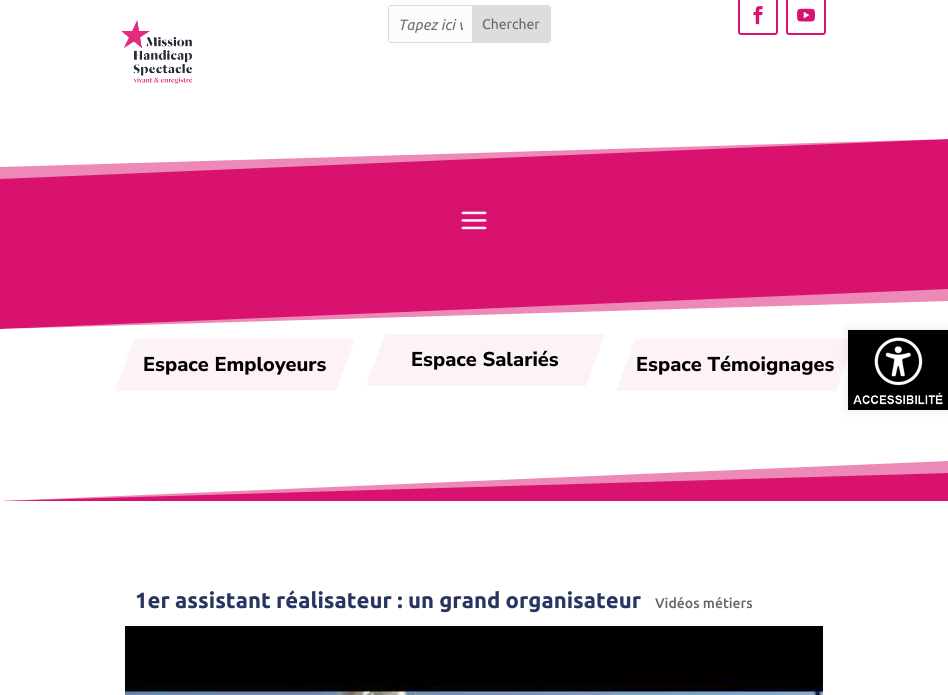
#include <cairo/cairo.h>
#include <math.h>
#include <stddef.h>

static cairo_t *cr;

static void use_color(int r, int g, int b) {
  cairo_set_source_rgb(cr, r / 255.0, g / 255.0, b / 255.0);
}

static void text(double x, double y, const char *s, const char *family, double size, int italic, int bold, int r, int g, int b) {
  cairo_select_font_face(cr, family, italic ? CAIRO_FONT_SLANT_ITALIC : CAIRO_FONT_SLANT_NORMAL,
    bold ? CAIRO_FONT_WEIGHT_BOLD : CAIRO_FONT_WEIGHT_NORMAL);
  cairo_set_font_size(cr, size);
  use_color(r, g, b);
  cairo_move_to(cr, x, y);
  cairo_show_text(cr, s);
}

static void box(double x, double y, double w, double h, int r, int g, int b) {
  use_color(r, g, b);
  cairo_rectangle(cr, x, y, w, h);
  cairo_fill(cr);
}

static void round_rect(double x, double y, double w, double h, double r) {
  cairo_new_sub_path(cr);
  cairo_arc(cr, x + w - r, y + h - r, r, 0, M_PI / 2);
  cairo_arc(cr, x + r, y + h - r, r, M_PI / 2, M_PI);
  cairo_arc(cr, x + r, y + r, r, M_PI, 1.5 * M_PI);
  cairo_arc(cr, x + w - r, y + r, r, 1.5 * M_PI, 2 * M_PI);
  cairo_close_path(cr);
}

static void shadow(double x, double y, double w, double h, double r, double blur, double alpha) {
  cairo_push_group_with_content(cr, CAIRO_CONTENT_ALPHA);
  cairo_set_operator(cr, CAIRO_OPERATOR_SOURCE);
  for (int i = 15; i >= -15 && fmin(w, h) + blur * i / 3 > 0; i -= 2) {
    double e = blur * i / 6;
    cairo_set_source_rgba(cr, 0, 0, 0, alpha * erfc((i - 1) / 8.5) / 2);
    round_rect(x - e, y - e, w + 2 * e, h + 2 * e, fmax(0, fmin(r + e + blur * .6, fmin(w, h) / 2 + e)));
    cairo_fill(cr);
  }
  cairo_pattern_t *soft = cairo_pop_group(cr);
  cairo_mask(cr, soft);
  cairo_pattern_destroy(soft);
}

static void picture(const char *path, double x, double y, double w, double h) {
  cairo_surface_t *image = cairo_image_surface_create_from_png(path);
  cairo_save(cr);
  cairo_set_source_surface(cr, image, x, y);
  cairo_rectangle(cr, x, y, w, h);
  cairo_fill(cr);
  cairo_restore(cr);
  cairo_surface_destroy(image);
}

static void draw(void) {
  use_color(255, 255, 255);
  cairo_paint(cr);
  picture("img_01.png", 121, 20, 71, 64);
  round_rect(388.5, 5.5, 162, 37, 2.5);
  use_color(221, 221, 221);
  cairo_set_line_width(cr, 1);
  cairo_stroke(cr);
  use_color(252, 252, 252);
  round_rect(389, 6, 161, 36, 2);
  cairo_fill(cr);
  use_color(221, 221, 221);
  cairo_new_path(cr);
  cairo_move_to(cr, 472, 6);
  cairo_line_to(cr, 548, 6);
  cairo_curve_to(cr, 549, 6, 550, 7, 550, 8);
  cairo_line_to(cr, 550, 40);
  cairo_curve_to(cr, 550, 41, 549, 42, 548, 42);
  cairo_line_to(cr, 472, 42);
  cairo_close_path(cr);
  cairo_fill(cr);
  round_rect(739, -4, 38, 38, 2);
  use_color(217, 18, 111);
  cairo_set_line_width(cr, 2);
  cairo_stroke(cr);
  picture("img_02.png", 753, 6, 10, 19);
  round_rect(787, -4, 38, 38, 2);
  cairo_stroke(cr);
  picture("img_03.png", 797, 8, 18, 14);
  box(0, 139, 948, 190, 217, 18, 111);
  use_color(236, 137, 183);
  cairo_new_path(cr);
  cairo_move_to(cr, 0, 179);
  cairo_line_to(cr, 0, 139);
  cairo_line_to(cr, 948, 139);
  cairo_close_path(cr);
  cairo_fill(cr);
  use_color(255, 255, 255);
  cairo_new_path(cr);
  cairo_move_to(cr, 0, 167);
  cairo_line_to(cr, 0, 139);
  cairo_line_to(cr, 948, 139);
  cairo_close_path(cr);
  cairo_fill(cr);
  picture("img_04.png", 461, 211, 26, 19);
  use_color(236, 137, 183);
  cairo_new_path(cr);
  cairo_move_to(cr, 948, 289);
  cairo_line_to(cr, 948, 329);
  cairo_line_to(cr, 0, 329);
  cairo_close_path(cr);
  cairo_fill(cr);
  use_color(255, 255, 255);
  cairo_new_path(cr);
  cairo_move_to(cr, 948, 301);
  cairo_line_to(cr, 948, 329);
  cairo_line_to(cr, 0, 329);
  cairo_close_path(cr);
  cairo_fill(cr);
  use_color(253, 242, 246);
  cairo_new_path(cr);
  cairo_move_to(cr, 134, 339);
  cairo_line_to(cr, 355, 339);
  cairo_line_to(cr, 336, 391);
  cairo_line_to(cr, 115, 391);
  cairo_close_path(cr);
  cairo_fill(cr);
  cairo_new_path(cr);
  cairo_move_to(cr, 385, 334);
  cairo_line_to(cr, 605, 334);
  cairo_line_to(cr, 586, 386);
  cairo_line_to(cr, 366, 386);
  cairo_close_path(cr);
  cairo_fill(cr);
  cairo_new_path(cr);
  cairo_move_to(cr, 635, 339);
  cairo_line_to(cr, 855, 339);
  cairo_line_to(cr, 836, 391);
  cairo_line_to(cr, 616, 391);
  cairo_close_path(cr);
  cairo_fill(cr);
  use_color(236, 137, 183);
  cairo_new_path(cr);
  cairo_move_to(cr, 948, 461);
  cairo_line_to(cr, 948, 501);
  cairo_line_to(cr, 0, 501);
  cairo_close_path(cr);
  cairo_fill(cr);
  use_color(217, 18, 111);
  cairo_new_path(cr);
  cairo_move_to(cr, 948, 473);
  cairo_line_to(cr, 948, 501);
  cairo_line_to(cr, 0, 501);
  cairo_close_path(cr);
  cairo_fill(cr);
  picture("img_05.png", 125, 626, 698, 69);
  use_color(0, 0, 0);
  shadow(848, 330, 100, 80, 0, 5, 0.1);
  box(848, 330, 100, 80, 0, 0, 0);
  picture("img_06.png", 853, 337, 90, 68);
  cairo_save(cr);
  cairo_rectangle(cr, 398, 16, 65, 17);
  cairo_clip(cr);
  text(398, 30, "Tapez ici v", "Ubuntu", 15, 1, 0, 112, 112, 112);
  cairo_restore(cr);
  text(482, 29, "Chercher", "Ubuntu", 14, 0, 0, 102, 102, 102);
  text(143, 371, "Espace Employeurs", "Nunito Sans ExtraBold", 20, 0, 0, 0, 0, 0);
  text(411, 366, "Espace Salariés", "Nunito Sans ExtraBold", 20, 0, 0, 0, 0, 0);
  text(636, 371, "Espace Témoignages", "Nunito Sans ExtraBold", 20, 0, 0, 0, 0, 0);
  text(135, 608, "1er assistant réalisateur : un grand organisateur", "Ubuntu", 22.1, 0, 1, 40, 53, 96);
  text(655, 608, "Vidéos métiers", "Ubuntu Medium", 14, 0, 0, 102, 102, 102);
}

int main(void) {
  cairo_surface_t *surface = cairo_image_surface_create(CAIRO_FORMAT_RGB24, 948, 695);
  cr = cairo_create(surface);
  cairo_font_options_t *options = cairo_font_options_create();
  cairo_font_options_set_hint_metrics(options, CAIRO_HINT_METRICS_OFF);
  cairo_font_options_set_hint_style(options, CAIRO_HINT_STYLE_NONE);
  cairo_set_font_options(cr, options);
  cairo_set_miter_limit(cr, 4);
  draw();
  cairo_surface_write_to_png(surface, "out.png");
  cairo_font_options_destroy(options);
  cairo_destroy(cr);
  cairo_surface_destroy(surface);
  return 0;
}
